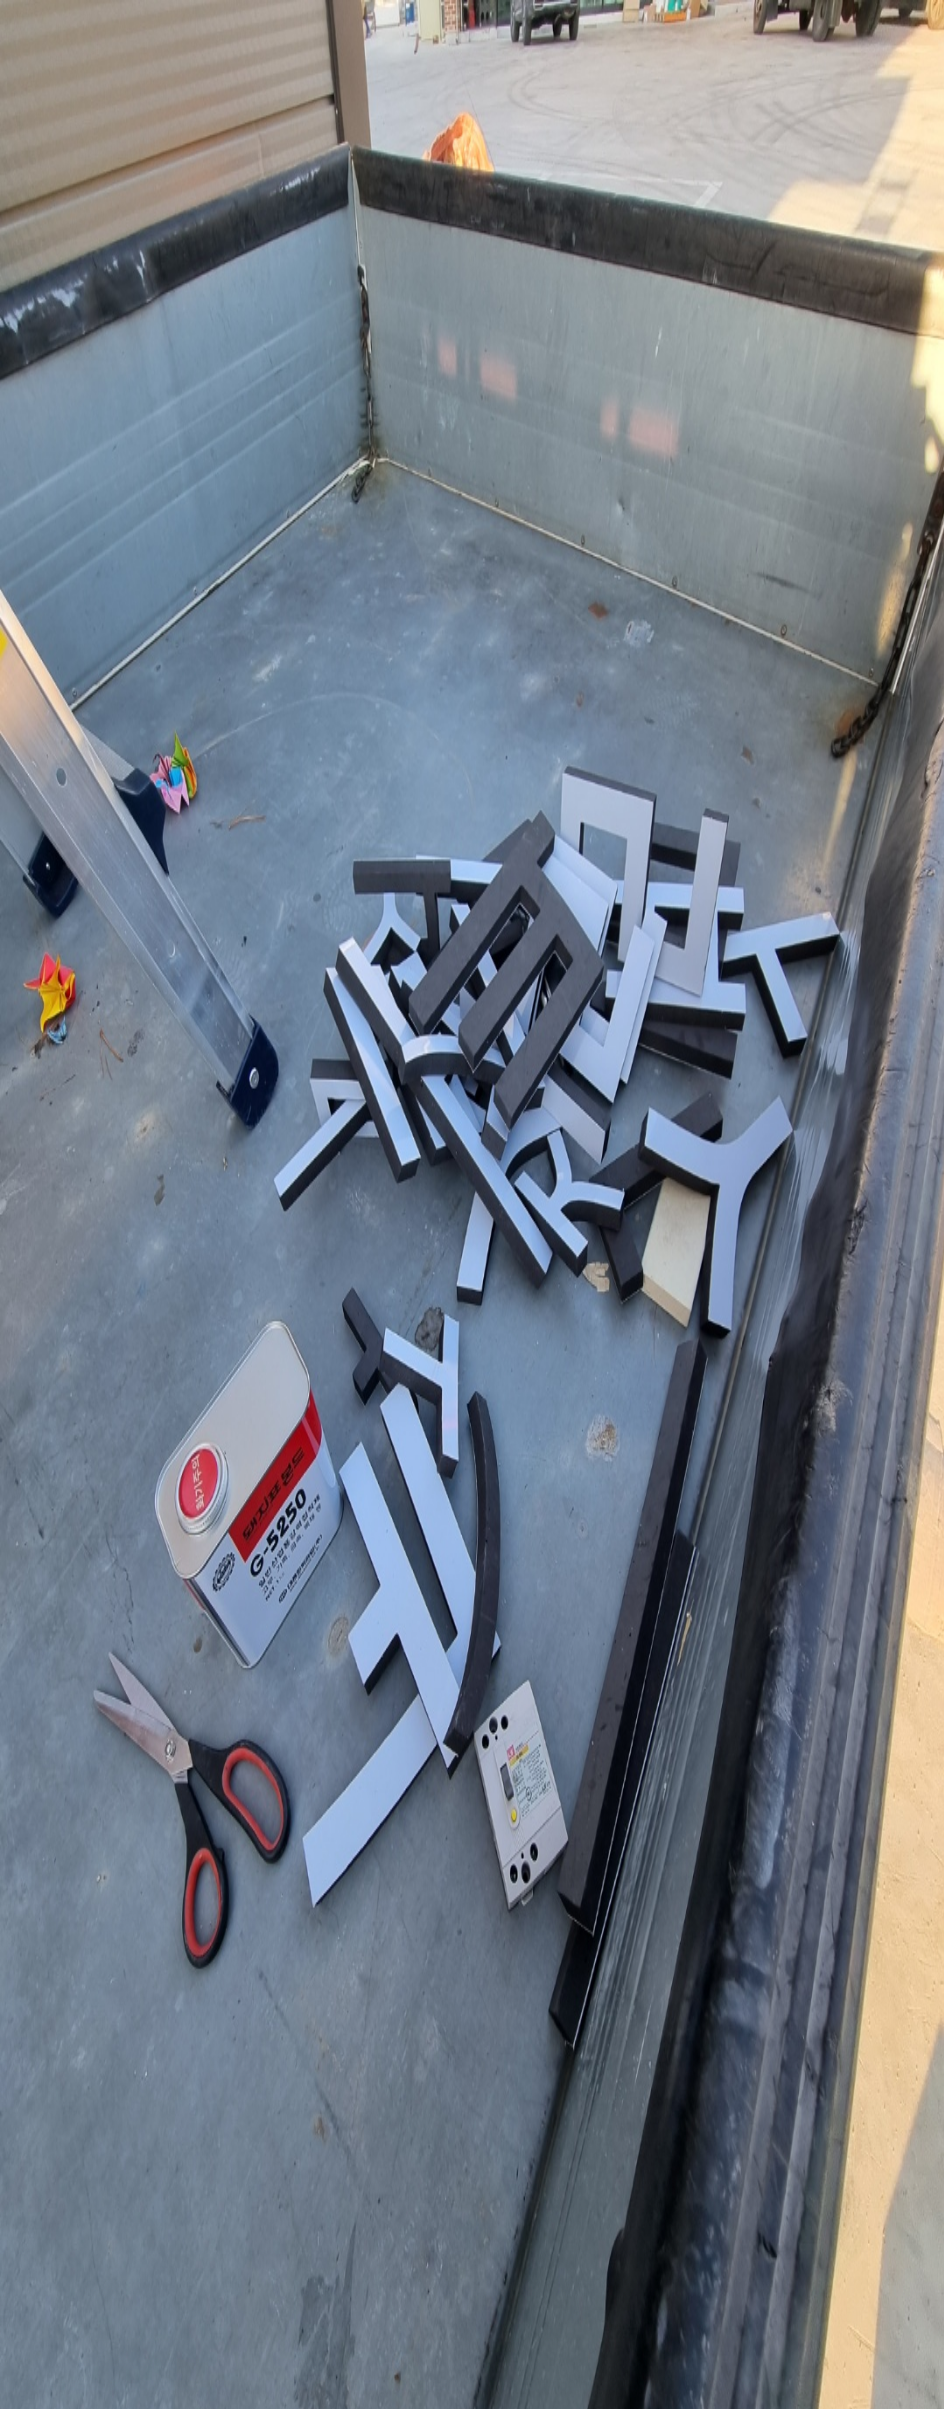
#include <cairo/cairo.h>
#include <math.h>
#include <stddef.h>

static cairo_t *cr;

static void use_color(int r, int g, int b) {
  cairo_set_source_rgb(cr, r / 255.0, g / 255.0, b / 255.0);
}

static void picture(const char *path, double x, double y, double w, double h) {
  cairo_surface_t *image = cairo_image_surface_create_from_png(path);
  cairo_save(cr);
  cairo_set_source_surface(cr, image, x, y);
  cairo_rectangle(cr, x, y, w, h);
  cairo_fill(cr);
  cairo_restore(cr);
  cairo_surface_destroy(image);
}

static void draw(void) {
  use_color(255, 255, 255);
  cairo_paint(cr);
  picture("img_01.png", 0, 0, 944, 2409);
}

int main(void) {
  cairo_surface_t *surface = cairo_image_surface_create(CAIRO_FORMAT_RGB24, 944, 2409);
  cr = cairo_create(surface);
  cairo_font_options_t *options = cairo_font_options_create();
  cairo_font_options_set_hint_metrics(options, CAIRO_HINT_METRICS_OFF);
  cairo_font_options_set_hint_style(options, CAIRO_HINT_STYLE_NONE);
  cairo_set_font_options(cr, options);
  cairo_set_miter_limit(cr, 4);
  draw();
  cairo_surface_write_to_png(surface, "out.png");
  cairo_font_options_destroy(options);
  cairo_destroy(cr);
  cairo_surface_destroy(surface);
  return 0;
}
